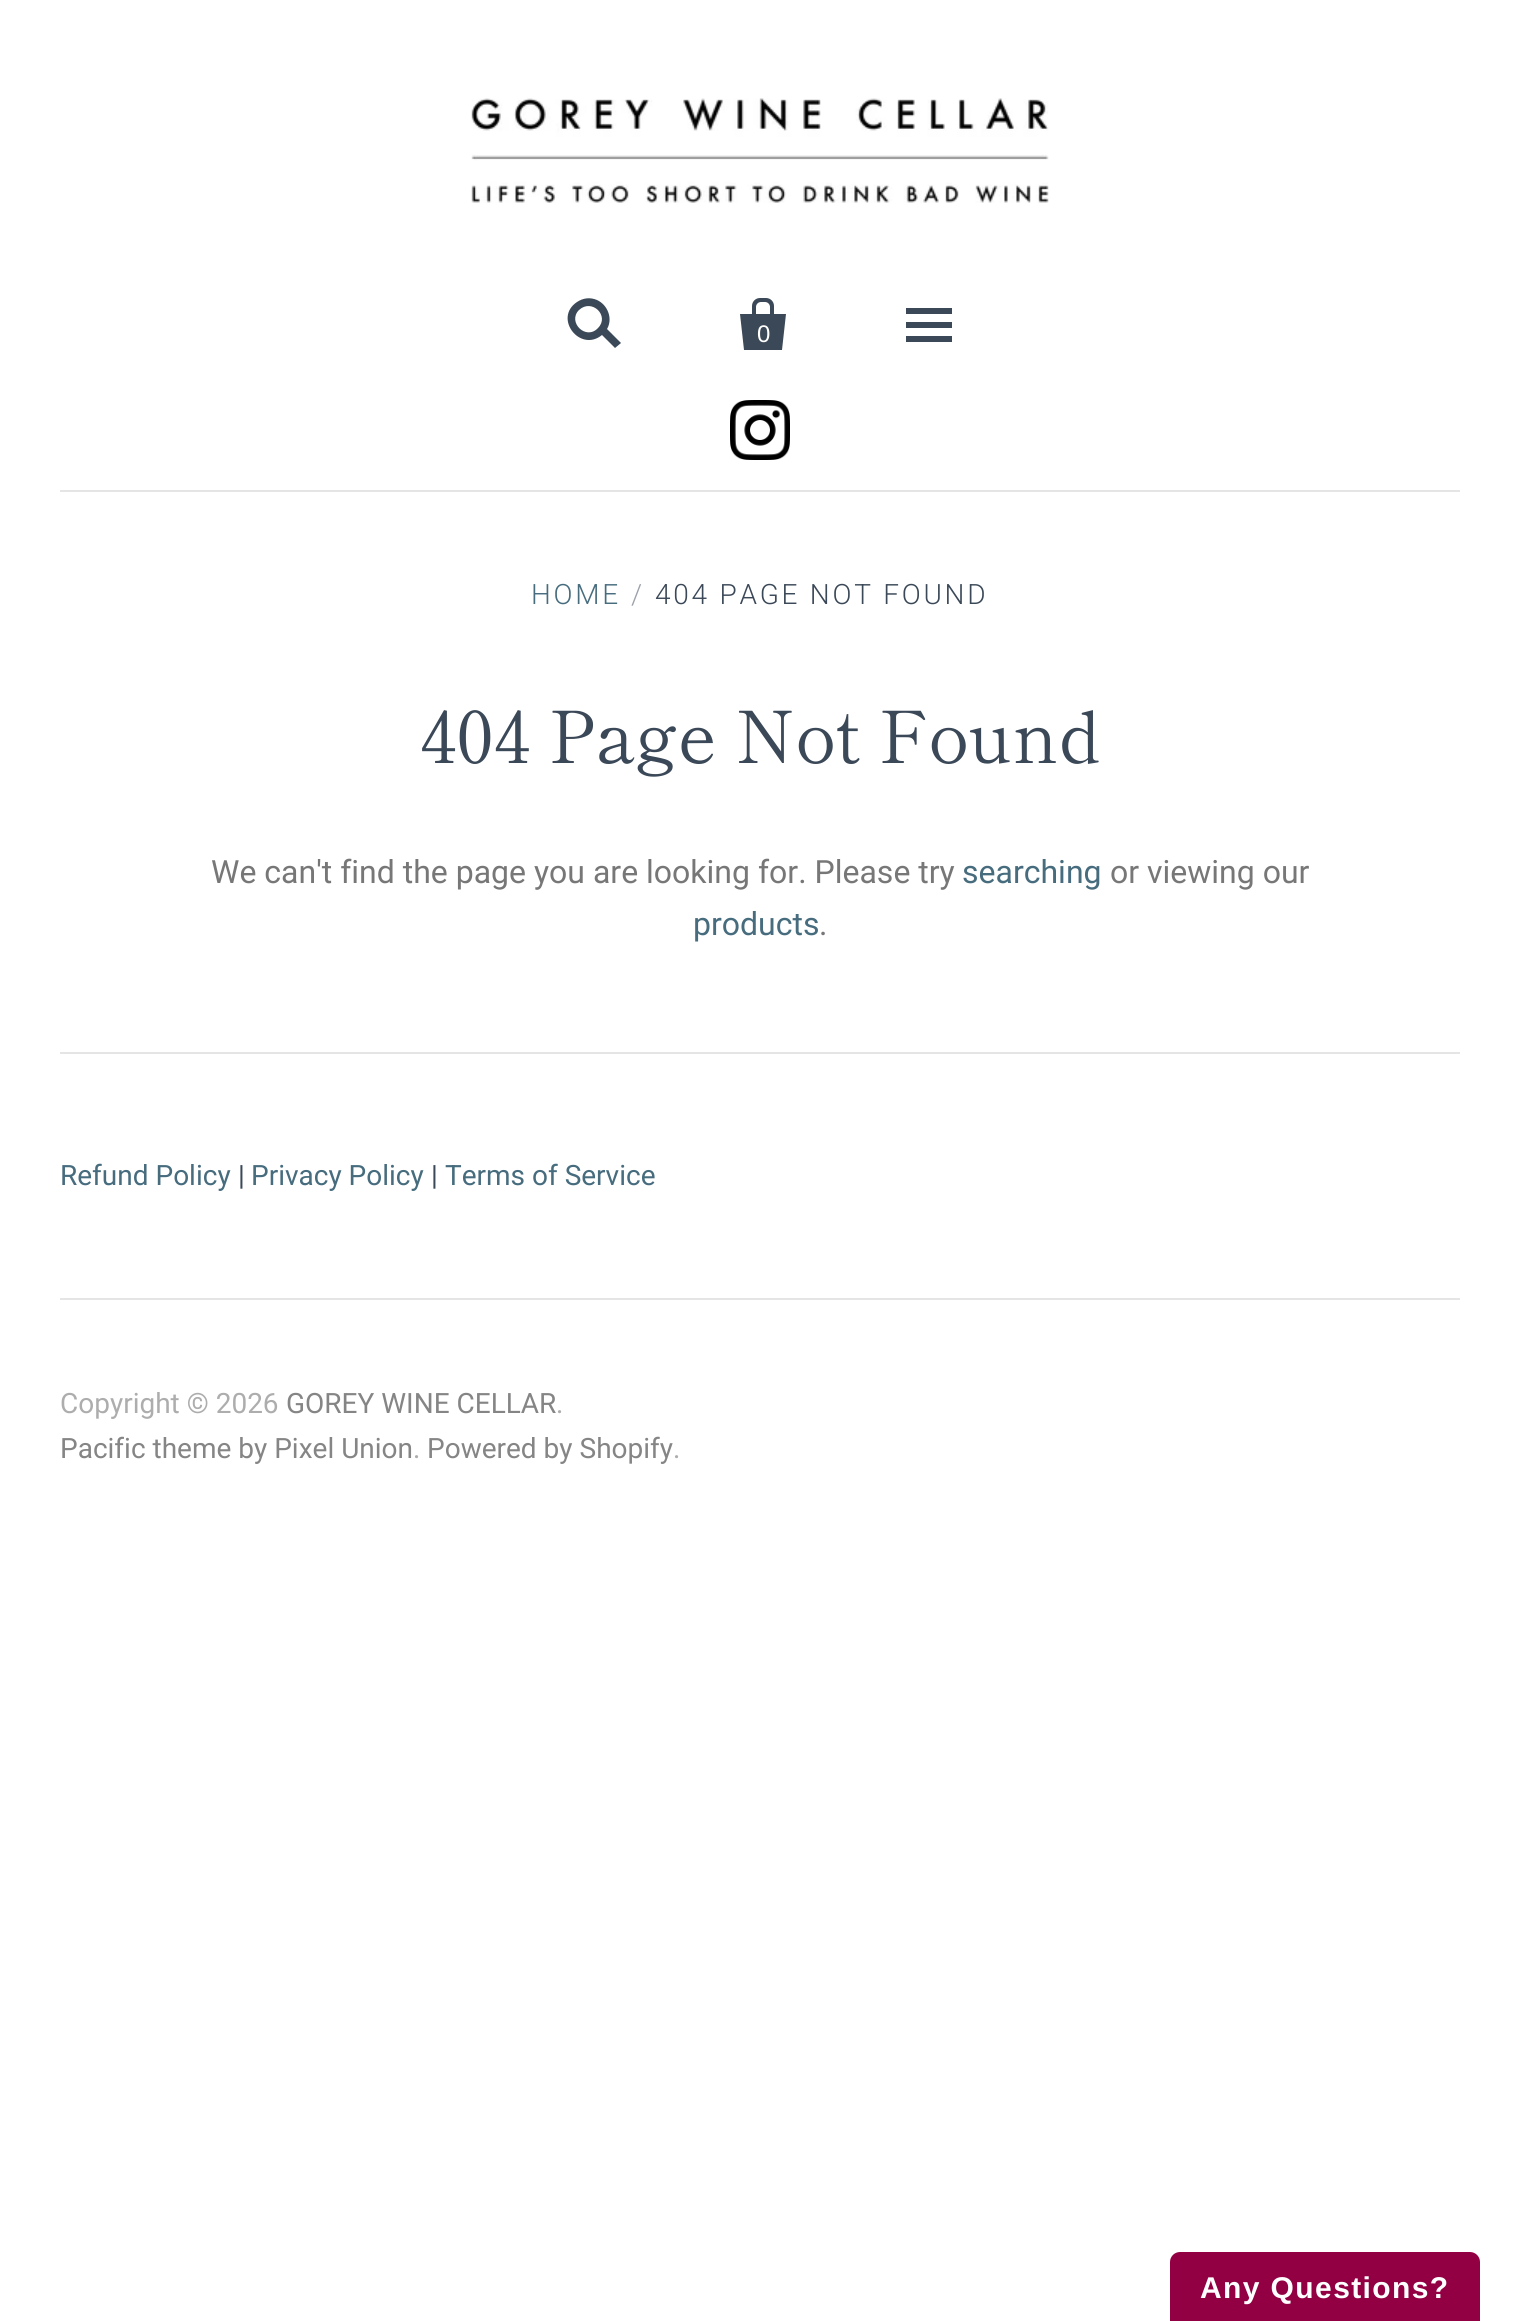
#include <cairo/cairo.h>
#include <math.h>
#include <stddef.h>

static cairo_t *cr;

static void use_color(int r, int g, int b) {
  cairo_set_source_rgb(cr, r / 255.0, g / 255.0, b / 255.0);
}

static void text(double x, double y, const char *s, const char *family, double size, int italic, int bold, int r, int g, int b) {
  cairo_select_font_face(cr, family, italic ? CAIRO_FONT_SLANT_ITALIC : CAIRO_FONT_SLANT_NORMAL,
    bold ? CAIRO_FONT_WEIGHT_BOLD : CAIRO_FONT_WEIGHT_NORMAL);
  cairo_set_font_size(cr, size);
  use_color(r, g, b);
  cairo_move_to(cr, x, y);
  cairo_show_text(cr, s);
}

static void spaced_text(double x, double y, const char *s, double letter, double word) {
  cairo_move_to(cr, x, y);
  while (*s) {
    char ch[5] = {0};
    int n = 0;
    do ch[n++] = *s++; while ((*s & 0xC0) == 0x80);
    cairo_show_text(cr, ch);
    cairo_rel_move_to(cr, letter + word * (*ch == ' '), 0);
  }
}

static void box(double x, double y, double w, double h, int r, int g, int b) {
  use_color(r, g, b);
  cairo_rectangle(cr, x, y, w, h);
  cairo_fill(cr);
}

static void picture(const char *path, double x, double y, double w, double h) {
  cairo_surface_t *image = cairo_image_surface_create_from_png(path);
  cairo_save(cr);
  cairo_set_source_surface(cr, image, x, y);
  cairo_rectangle(cr, x, y, w, h);
  cairo_fill(cr);
  cairo_restore(cr);
  cairo_surface_destroy(image);
}

static void draw(void) {
  use_color(255, 255, 255);
  cairo_paint(cr);
  box(60, 490, 1400, 2, 229, 229, 229);
  picture("img_01.png", 471, 98, 578, 105);
  use_color(59, 72, 88);
  cairo_new_path(cr);
  cairo_move_to(cr, 607, 329);
  cairo_curve_to(cr, 613, 319, 608, 305, 597, 300);
  cairo_curve_to(cr, 590, 297, 583, 298, 577, 302);
  cairo_curve_to(cr, 553, 318, 580, 353, 602, 335);
  cairo_line_to(cr, 615, 348);
  cairo_line_to(cr, 621, 343);
  cairo_close_path(cr);
  cairo_move_to(cr, 598, 328);
  cairo_curve_to(cr, 586, 341, 567, 322, 579, 310);
  cairo_curve_to(cr, 592, 298, 610, 316, 598, 328);
  cairo_close_path(cr);
  cairo_fill(cr);
  picture("img_02.png", 740, 298, 46, 52);
  box(906, 322, 46, 6, 59, 72, 88);
  box(906, 308, 46, 6, 59, 72, 88);
  box(906, 336, 46, 6, 59, 72, 88);
  picture("img_03.png", 730, 400, 60, 60);
  box(60, 1052, 1400, 2, 229, 229, 229);
  box(60, 1298, 1400, 2, 229, 229, 229);
  use_color(146, 0, 67);
  cairo_new_path(cr);
  cairo_move_to(cr, 1180, 2252);
  cairo_line_to(cr, 1470, 2252);
  cairo_curve_to(cr, 1475.5, 2252, 1480, 2256.5, 1480, 2262);
  cairo_line_to(cr, 1480, 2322);
  cairo_line_to(cr, 1170, 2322);
  cairo_line_to(cr, 1170, 2262);
  cairo_curve_to(cr, 1170, 2256.5, 1174.5, 2252, 1180, 2252);
  cairo_close_path(cr);
  cairo_fill(cr);
  text(757, 342, "0", "Liberation Sans", 24, 0, 0, 255, 255, 255);
  cairo_select_font_face(cr, "Roboto Light", CAIRO_FONT_SLANT_NORMAL, CAIRO_FONT_WEIGHT_NORMAL);
  cairo_set_font_size(cr, 28);
  use_color(70, 108, 126);
  spaced_text(531, 604, "HOME", 2.75, 0);
  use_color(157, 163, 171);
  spaced_text(631, 604, "/", 2.75, 0);
  use_color(59, 72, 88);
  spaced_text(655, 604, "404 PAGE NOT FOUND", 2.75, 0);
  text(420, 763, "404 Page Not Found", "Shippori Mincho", 72, 0, 0, 59, 72, 88);
  text(211, 883, "We can't find the page you are looking for. Please try", "Roboto", 32, 0, 0, 119, 119, 119);
  text(962, 883, "searching", "Roboto", 32, 0, 0, 70, 108, 126);
  text(1110, 883, "or viewing our", "Roboto", 32, 0, 0, 119, 119, 119);
  text(693, 935, "products", "Roboto", 32, 0, 0, 70, 108, 126);
  text(819, 935, ".", "Roboto", 32, 0, 0, 119, 119, 119);
  text(60, 1185, "Refund Policy", "Roboto", 28, 0, 0, 70, 108, 126);
  text(238, 1185, "|", "Roboto", 28, 0, 0, 59, 72, 88);
  text(251, 1185, "Privacy Policy", "Roboto", 28, 0, 0, 70, 108, 126);
  text(431, 1185, "|", "Roboto", 28, 0, 0, 59, 72, 88);
  text(445, 1185, "Terms of Service", "Roboto", 28, 0, 0, 70, 108, 126);
  text(60, 1413, "Copyright © 2026", "Roboto", 28, 0, 0, 173, 173, 173);
  text(286, 1413, "GOREY WINE CELLAR", "Roboto", 28, 0, 0, 133, 133, 133);
  text(556, 1413, ".", "Roboto", 28, 0, 0, 173, 173, 173);
  text(60, 1458, "Pacific theme by Pixel Union", "Roboto", 28, 0, 0, 133, 133, 133);
  text(413, 1458, ".", "Roboto", 28, 0, 0, 173, 173, 173);
  text(427, 1458, "Powered by Shopify", "Roboto", 28, 0, 0, 133, 133, 133);
  text(673, 1458, ".", "Roboto", 28, 0, 0, 173, 173, 173);
  cairo_select_font_face(cr, "Liberation Sans", CAIRO_FONT_SLANT_NORMAL, CAIRO_FONT_WEIGHT_BOLD);
  cairo_set_font_size(cr, 30);
  use_color(255, 255, 255);
  spaced_text(1200, 2298, "Any Questions?", 1.4, 0);
}

int main(void) {
  cairo_surface_t *surface = cairo_image_surface_create(CAIRO_FORMAT_RGB24, 1520, 2321);
  cr = cairo_create(surface);
  cairo_font_options_t *options = cairo_font_options_create();
  cairo_font_options_set_hint_metrics(options, CAIRO_HINT_METRICS_OFF);
  cairo_font_options_set_hint_style(options, CAIRO_HINT_STYLE_NONE);
  cairo_set_font_options(cr, options);
  cairo_set_miter_limit(cr, 4);
  draw();
  cairo_surface_write_to_png(surface, "out.png");
  cairo_font_options_destroy(options);
  cairo_destroy(cr);
  cairo_surface_destroy(surface);
  return 0;
}
